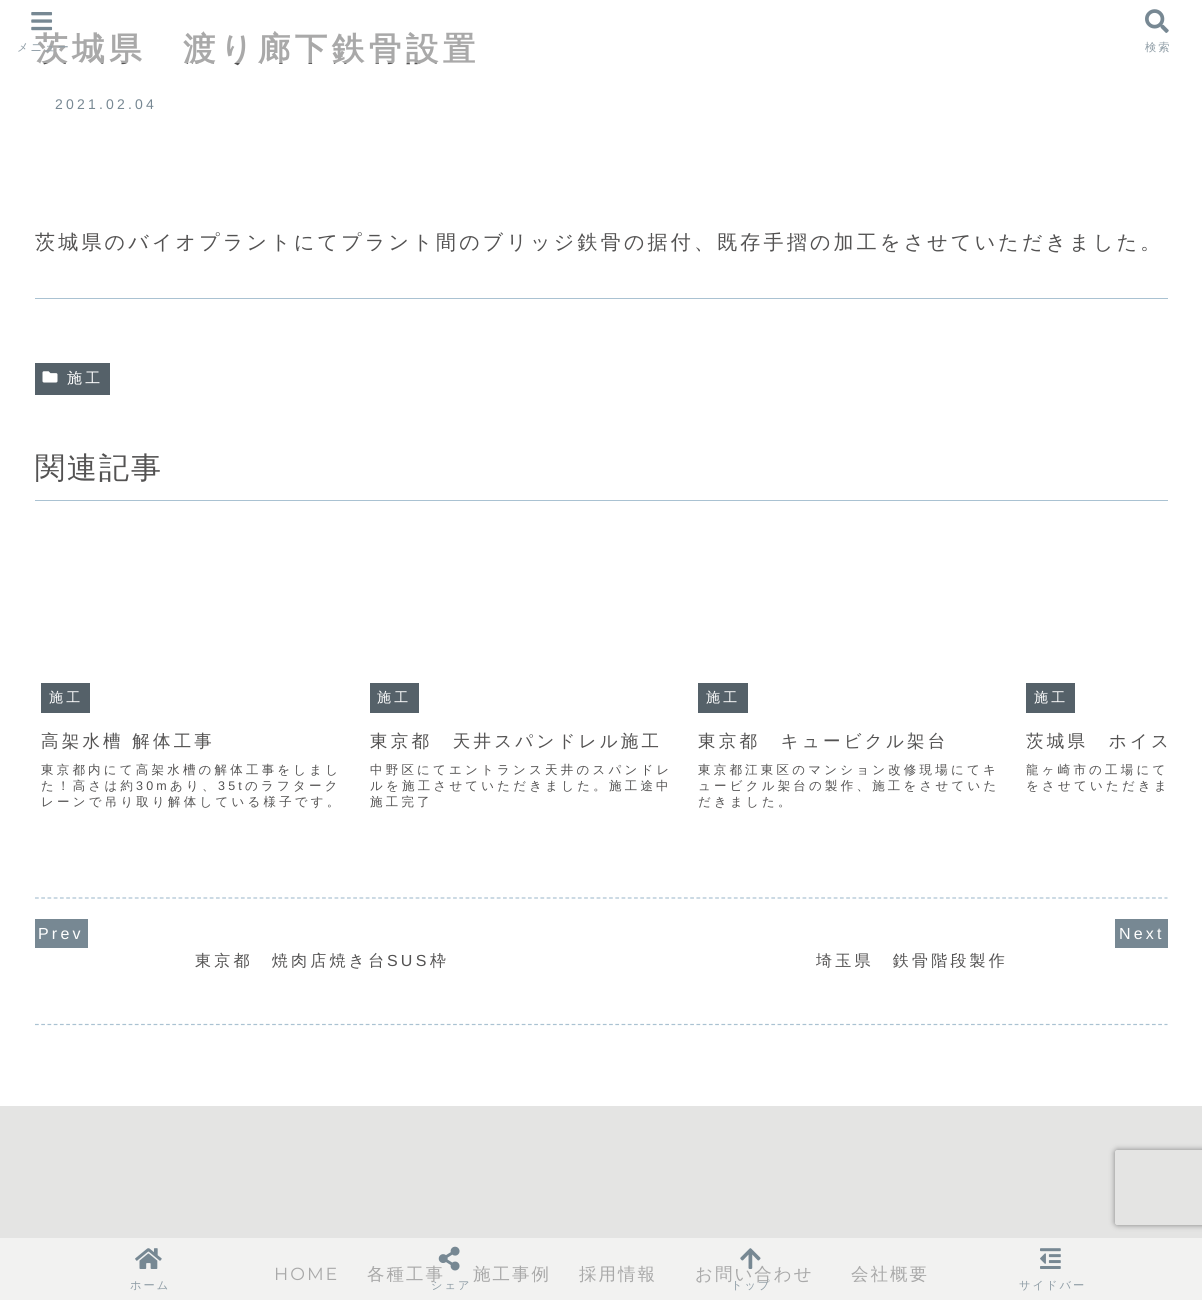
#include <cairo/cairo.h>
#include <math.h>
#include <stddef.h>

static cairo_t *cr;

static void use_color(int r, int g, int b) {
  cairo_set_source_rgb(cr, r / 255.0, g / 255.0, b / 255.0);
}

static void spaced_text(double x, double y, const char *s, double letter, double word) {
  cairo_move_to(cr, x, y);
  while (*s) {
    char ch[5] = {0};
    int n = 0;
    do ch[n++] = *s++; while ((*s & 0xC0) == 0x80);
    cairo_show_text(cr, ch);
    cairo_rel_move_to(cr, letter + word * (*ch == ' '), 0);
  }
}

static void box(double x, double y, double w, double h, int r, int g, int b) {
  use_color(r, g, b);
  cairo_rectangle(cr, x, y, w, h);
  cairo_fill(cr);
}

static void round_rect(double x, double y, double w, double h, double r) {
  cairo_new_sub_path(cr);
  cairo_arc(cr, x + w - r, y + h - r, r, 0, M_PI / 2);
  cairo_arc(cr, x + r, y + h - r, r, M_PI / 2, M_PI);
  cairo_arc(cr, x + r, y + r, r, M_PI, 1.5 * M_PI);
  cairo_arc(cr, x + w - r, y + r, r, 1.5 * M_PI, 2 * M_PI);
  cairo_close_path(cr);
}

static void shadow(double x, double y, double w, double h, double r, double blur, double alpha) {
  cairo_push_group_with_content(cr, CAIRO_CONTENT_ALPHA);
  cairo_set_operator(cr, CAIRO_OPERATOR_SOURCE);
  for (int i = 15; i >= -15 && fmin(w, h) + blur * i / 3 > 0; i -= 2) {
    double e = blur * i / 6;
    cairo_set_source_rgba(cr, 0, 0, 0, alpha * erfc((i - 1) / 8.5) / 2);
    round_rect(x - e, y - e, w + 2 * e, h + 2 * e, fmax(0, fmin(r + e + blur * .6, fmin(w, h) / 2 + e)));
    cairo_fill(cr);
  }
  cairo_pattern_t *soft = cairo_pop_group(cr);
  cairo_mask(cr, soft);
  cairo_pattern_destroy(soft);
}

static void picture(const char *path, double x, double y, double w, double h) {
  cairo_surface_t *image = cairo_image_surface_create_from_png(path);
  cairo_save(cr);
  cairo_set_source_surface(cr, image, x, y);
  cairo_rectangle(cr, x, y, w, h);
  cairo_fill(cr);
  cairo_restore(cr);
  cairo_surface_destroy(image);
}

static void draw(void) {
  use_color(255, 255, 255);
  cairo_paint(cr);
  box(35, 298, 1133, 1, 170, 194, 210);
  box(35, 363, 75, 32, 85, 97, 105);
  picture("img_01.png", 42, 371, 16, 12);
  box(35, 500, 1133, 1, 170, 194, 210);
  box(41, 683, 49, 30, 85, 97, 105);
  box(370, 683, 49, 30, 85, 97, 105);
  box(698, 683, 50, 30, 85, 97, 105);
  box(1026, 683, 49, 30, 85, 97, 105);
  cairo_new_path(cr);
  cairo_move_to(cr, 35, 898);
  cairo_line_to(cr, 1167.5, 898);
  use_color(170, 194, 210);
  cairo_set_line_width(cr, 1.2);
  cairo_set_dash(cr, (double[]){3.75, 2.49}, 2, 0);
  cairo_stroke(cr);
  cairo_new_path(cr);
  cairo_move_to(cr, 35, 1024.5);
  cairo_line_to(cr, 1167.5, 1024.5);
  cairo_stroke(cr);
  box(35, 919, 53, 29, 119, 136, 147);
  box(1115, 919, 53, 29, 119, 136, 147);
  picture("img_02.png", 31, 12, 22, 19);
  picture("img_03.png", 1145, 9, 24, 24);
  box(0, 1106, 1202, 132, 228, 228, 227);
  box(0, 1238, 1202, 62, 242, 242, 241);
  picture("img_04.png", 135, 1248, 27, 21);
  picture("img_07.png", 1040, 1248, 21, 21);
  cairo_save(cr);
  cairo_set_fill_rule(cr, CAIRO_FILL_RULE_EVEN_ODD);
  cairo_new_path(cr);
  cairo_move_to(cr, 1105, 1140);
  cairo_line_to(cr, 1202, 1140);
  cairo_line_to(cr, 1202, 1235);
  cairo_line_to(cr, 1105, 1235);
  cairo_close_path(cr);
  cairo_move_to(cr, 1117.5, 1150);
  cairo_line_to(cr, 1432.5, 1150);
  cairo_curve_to(cr, 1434, 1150, 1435, 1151, 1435, 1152.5);
  cairo_line_to(cr, 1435, 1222.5);
  cairo_curve_to(cr, 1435, 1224, 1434, 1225, 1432.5, 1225);
  cairo_line_to(cr, 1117.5, 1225);
  cairo_curve_to(cr, 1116, 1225, 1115, 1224, 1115, 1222.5);
  cairo_line_to(cr, 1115, 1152.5);
  cairo_curve_to(cr, 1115, 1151, 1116, 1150, 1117.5, 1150);
  cairo_close_path(cr);
  cairo_clip(cr);
  use_color(128, 128, 128);
  shadow(1115, 1150, 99, 75, 2.5, 3, 1);
  cairo_restore(cr);
  cairo_select_font_face(cr, "WenQuanYi Zen Hei", CAIRO_FONT_SLANT_NORMAL, CAIRO_FONT_WEIGHT_BOLD);
  cairo_set_font_size(cr, 32.5);
  use_color(83, 82, 82);
  spaced_text(35, 60, "茨城県　渡り廊下鉄骨設置", 4.5, 0);
  cairo_select_font_face(cr, "Liberation Sans", CAIRO_FONT_SLANT_NORMAL, CAIRO_FONT_WEIGHT_NORMAL);
  cairo_set_font_size(cr, 14);
  use_color(119, 136, 147);
  spaced_text(55, 109, "2021.02.04", 3.2, 0);
  cairo_select_font_face(cr, "WenQuanYi Zen Hei Medium", CAIRO_FONT_SLANT_NORMAL, CAIRO_FONT_WEIGHT_NORMAL);
  cairo_set_font_size(cr, 20);
  use_color(83, 82, 82);
  spaced_text(35, 249, "茨城県のバイオプラントにてプラント間のブリッジ鉄骨の据付、既存手摺の加工をさせていただきました。", 3.2, 0);
  cairo_set_font_size(cr, 15);
  use_color(255, 255, 255);
  spaced_text(67, 383, "施工", 3.2, 0);
  cairo_set_font_size(cr, 30);
  use_color(83, 82, 82);
  spaced_text(35, 478, "関連記事", 2, 0);
  cairo_set_font_size(cr, 14);
  use_color(255, 255, 255);
  spaced_text(49, 702, "施工", 3.2, 0);
  cairo_set_font_size(cr, 17.5);
  use_color(83, 82, 82);
  spaced_text(41, 747, "高架水槽 解体工事", 3.2, 0);
  cairo_set_font_size(cr, 12.5);
  spaced_text(41, 774, "東京都内にて高架水槽の解体工事をしまし", 3.2, 0);
  spaced_text(41, 790, "た！高さは約", 3.2, 0);
  cairo_select_font_face(cr, "Liberation Sans", CAIRO_FONT_SLANT_NORMAL, CAIRO_FONT_WEIGHT_NORMAL);
  spaced_text(136, 790, "30m", 3.2, 0);
  cairo_select_font_face(cr, "WenQuanYi Zen Hei Medium", CAIRO_FONT_SLANT_NORMAL, CAIRO_FONT_WEIGHT_NORMAL);
  spaced_text(170, 790, "あり、", 3.2, 0);
  cairo_select_font_face(cr, "Liberation Sans", CAIRO_FONT_SLANT_NORMAL, CAIRO_FONT_WEIGHT_NORMAL);
  spaced_text(218, 790, "35t", 3.2, 0);
  cairo_select_font_face(cr, "WenQuanYi Zen Hei Medium", CAIRO_FONT_SLANT_NORMAL, CAIRO_FONT_WEIGHT_NORMAL);
  spaced_text(245, 790, "のラフターク", 3.2, 0);
  spaced_text(41, 806, "レーンで吊り取り解体している様子です。", 3.2, 0);
  cairo_set_font_size(cr, 14);
  use_color(255, 255, 255);
  spaced_text(377, 702, "施工", 3.2, 0);
  cairo_set_font_size(cr, 17.5);
  use_color(83, 82, 82);
  spaced_text(370, 747, "東京都　天井スパンドレル施工", 3.2, 0);
  cairo_set_font_size(cr, 12.5);
  spaced_text(370, 774, "中野区にてエントランス天井のスパンドレ", 3.2, 0);
  spaced_text(370, 790, "ルを施工させていただきました。施工途中", 3.2, 0);
  spaced_text(370, 806, "施工完了", 3.2, 0);
  cairo_set_font_size(cr, 14);
  use_color(255, 255, 255);
  spaced_text(706, 702, "施工", 3.2, 0);
  cairo_set_font_size(cr, 17.5);
  use_color(83, 82, 82);
  spaced_text(698, 747, "東京都　キュービクル架台", 3.2, 0);
  cairo_set_font_size(cr, 12.5);
  spaced_text(698, 774, "東京都江東区のマンション改修現場にてキ", 3.2, 0);
  spaced_text(698, 790, "ュービクル架台の製作、施工をさせていた", 3.2, 0);
  spaced_text(698, 806, "だきました。", 3.2, 0);
  cairo_set_font_size(cr, 14);
  use_color(255, 255, 255);
  spaced_text(1034, 702, "施工", 3.2, 0);
  cairo_set_font_size(cr, 17.5);
  use_color(83, 82, 82);
  spaced_text(1026, 747, "茨城県　ホイス", 3.2, 0);
  cairo_set_font_size(cr, 12.5);
  spaced_text(1026, 774, "龍ヶ崎市の工場にて", 3.2, 0);
  spaced_text(1026, 790, "をさせていただきま", 3.2, 0);
  cairo_select_font_face(cr, "Liberation Sans", CAIRO_FONT_SLANT_NORMAL, CAIRO_FONT_WEIGHT_NORMAL);
  cairo_set_font_size(cr, 16);
  use_color(255, 255, 255);
  spaced_text(38, 939, "Prev", 3.2, 0);
  cairo_select_font_face(cr, "WenQuanYi Zen Hei Medium", CAIRO_FONT_SLANT_NORMAL, CAIRO_FONT_WEIGHT_NORMAL);
  use_color(83, 82, 82);
  spaced_text(195, 966, "東京都　焼肉店焼き台", 3.2, 0);
  cairo_select_font_face(cr, "Liberation Sans", CAIRO_FONT_SLANT_NORMAL, CAIRO_FONT_WEIGHT_NORMAL);
  spaced_text(387, 966, "SUS", 3.2, 0);
  cairo_select_font_face(cr, "WenQuanYi Zen Hei Medium", CAIRO_FONT_SLANT_NORMAL, CAIRO_FONT_WEIGHT_NORMAL);
  spaced_text(430, 966, "枠", 3.2, 0);
  cairo_select_font_face(cr, "Liberation Sans", CAIRO_FONT_SLANT_NORMAL, CAIRO_FONT_WEIGHT_NORMAL);
  use_color(255, 255, 255);
  spaced_text(1119, 939, "Next", 3.2, 0);
  cairo_select_font_face(cr, "WenQuanYi Zen Hei Medium", CAIRO_FONT_SLANT_NORMAL, CAIRO_FONT_WEIGHT_NORMAL);
  use_color(83, 82, 82);
  spaced_text(816, 966, "埼玉県　鉄骨階段製作", 3.2, 0);
  cairo_set_source_rgba(cr, 1, 1, 1, 0.5);
  cairo_rectangle(cr, 35, 32, 440, 31);
  cairo_fill(cr);
  cairo_set_font_size(cr, 11.25);
  use_color(142, 156, 165);
  spaced_text(17, 51, "メニュー", 2, 0);
  spaced_text(1145, 51, "検索", 2, 0);
  cairo_select_font_face(cr, "Montserrat", CAIRO_FONT_SLANT_NORMAL, CAIRO_FONT_WEIGHT_NORMAL);
  cairo_set_font_size(cr, 17.5);
  use_color(169, 169, 169);
  spaced_text(274, 1280, "HOME", 2, 0);
  cairo_select_font_face(cr, "WenQuanYi Zen Hei Medium", CAIRO_FONT_SLANT_NORMAL, CAIRO_FONT_WEIGHT_NORMAL);
  spaced_text(367, 1280, "各種工事", 2, 0);
  spaced_text(473, 1280, "施工事例", 2, 0);
  spaced_text(579, 1280, "採用情報", 2, 0);
  spaced_text(695, 1280, "お問い合わせ", 2, 0);
  spaced_text(851, 1280, "会社概要", 2, 0);
  cairo_set_font_size(cr, 11.25);
  use_color(142, 156, 165);
  spaced_text(130, 1289, "ホーム", 2, 0);
  picture("img_05.png", 438, 1246, 22, 25);
  spaced_text(431, 1289, "シェア", 2, 0);
  picture("img_06.png", 740, 1248, 21, 21);
  spaced_text(731, 1289, "トップ", 2, 0);
  spaced_text(1019, 1289, "サイドバー", 2, 0);
}

int main(void) {
  cairo_surface_t *surface = cairo_image_surface_create(CAIRO_FORMAT_RGB24, 1202, 1300);
  cr = cairo_create(surface);
  cairo_font_options_t *options = cairo_font_options_create();
  cairo_font_options_set_hint_metrics(options, CAIRO_HINT_METRICS_OFF);
  cairo_font_options_set_hint_style(options, CAIRO_HINT_STYLE_NONE);
  cairo_set_font_options(cr, options);
  cairo_set_miter_limit(cr, 4);
  draw();
  cairo_surface_write_to_png(surface, "out.png");
  cairo_font_options_destroy(options);
  cairo_destroy(cr);
  cairo_surface_destroy(surface);
  return 0;
}
